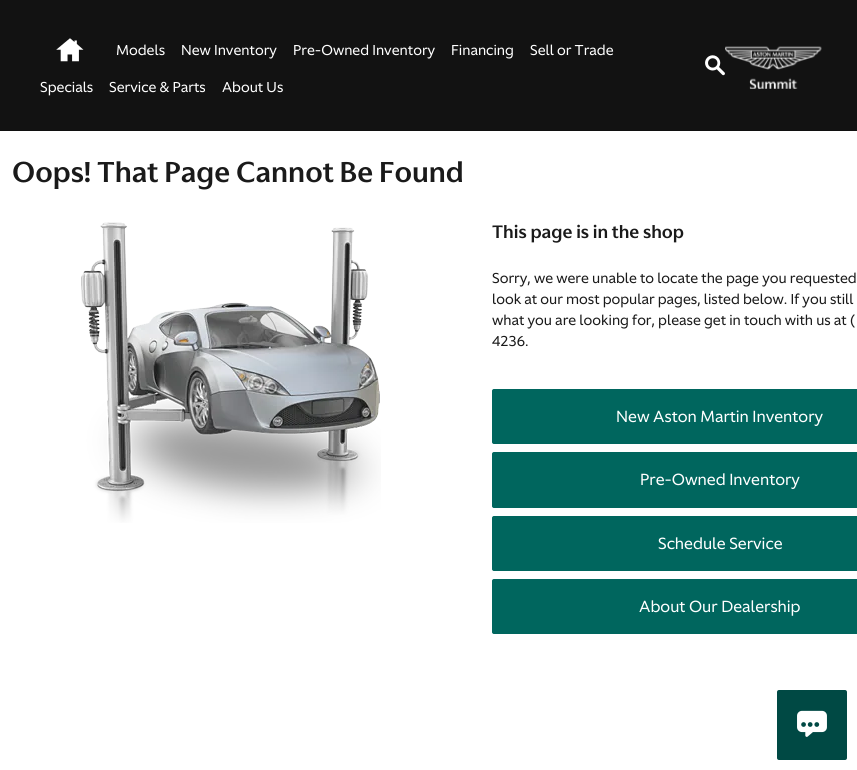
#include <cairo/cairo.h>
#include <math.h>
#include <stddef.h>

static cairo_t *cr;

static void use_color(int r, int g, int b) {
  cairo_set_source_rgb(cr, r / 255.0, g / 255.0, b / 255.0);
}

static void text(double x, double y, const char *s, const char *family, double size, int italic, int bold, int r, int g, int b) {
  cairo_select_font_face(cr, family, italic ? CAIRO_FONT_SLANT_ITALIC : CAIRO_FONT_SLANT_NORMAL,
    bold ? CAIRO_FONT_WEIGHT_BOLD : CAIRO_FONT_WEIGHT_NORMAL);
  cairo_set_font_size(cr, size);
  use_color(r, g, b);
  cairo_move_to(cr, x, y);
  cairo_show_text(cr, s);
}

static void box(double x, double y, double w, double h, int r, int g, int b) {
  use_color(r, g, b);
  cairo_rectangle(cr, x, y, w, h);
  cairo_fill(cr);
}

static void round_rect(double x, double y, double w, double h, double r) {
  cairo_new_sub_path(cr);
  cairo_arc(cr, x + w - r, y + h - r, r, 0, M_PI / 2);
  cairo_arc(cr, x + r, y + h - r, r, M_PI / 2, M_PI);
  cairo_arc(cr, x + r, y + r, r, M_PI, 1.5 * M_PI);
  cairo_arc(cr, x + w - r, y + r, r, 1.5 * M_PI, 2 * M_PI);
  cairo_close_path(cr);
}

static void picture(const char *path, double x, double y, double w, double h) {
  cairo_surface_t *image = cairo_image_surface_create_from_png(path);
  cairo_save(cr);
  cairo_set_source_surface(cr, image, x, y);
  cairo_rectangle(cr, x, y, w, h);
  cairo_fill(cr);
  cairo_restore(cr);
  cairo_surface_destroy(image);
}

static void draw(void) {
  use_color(255, 255, 255);
  cairo_paint(cr);
  box(0, 0, 857, 130, 18, 18, 18);
  box(0, 130, 857, 1, 16, 16, 16);
  picture("img_01.png", 56, 38, 28, 24);
  picture("img_02.png", 705, 55, 20, 21);
  picture("img_03.png", 725, 46, 97, 43);
  picture("img_04.png", 81, 222, 300, 301);
  use_color(0, 102, 94);
  round_rect(492.5, 389.5, 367, 54, 1.5);
  cairo_fill_preserve(cr);
  cairo_set_line_width(cr, 1);
  cairo_stroke(cr);
  round_rect(492.5, 452.5, 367, 55, 1.5);
  cairo_fill_preserve(cr);
  cairo_stroke(cr);
  round_rect(492.5, 516.5, 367, 54, 1.5);
  cairo_fill_preserve(cr);
  cairo_stroke(cr);
  round_rect(492.5, 579.5, 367, 54, 1.5);
  cairo_fill_preserve(cr);
  cairo_stroke(cr);
  use_color(0, 73, 68);
  round_rect(777, 690, 70, 70, 2);
  cairo_fill(cr);
  picture("img_05.png", 797, 710, 30, 27);
  text(116, 55, "Models", "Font", 14, 0, 0, 255, 255, 255);
  text(181, 55, "New Inventory", "Font", 14, 0, 0, 255, 255, 255);
  text(293, 55, "Pre-Owned Inventory", "Font", 14, 0, 0, 255, 255, 255);
  text(451, 55, "Financing", "Font", 14, 0, 0, 255, 255, 255);
  text(530, 55, "Sell or Trade", "Font", 14, 0, 0, 255, 255, 255);
  text(40, 92, "Specials", "Font", 14, 0, 0, 255, 255, 255);
  text(109, 92, "Service & Parts", "Font", 14, 0, 0, 255, 255, 255);
  text(222, 92, "About Us", "Font", 14, 0, 0, 255, 255, 255);
  text(12, 182, "Oops! That Page Cannot Be Found", "Font", 28, 0, 1, 26, 26, 26);
  text(492, 238, "This page is in the shop", "Font", 17.5, 0, 1, 26, 26, 26);
  text(492, 283, "Sorry, we were unable to locate the page you requested", "Font", 14, 0, 0, 26, 26, 26);
  text(492, 304, "look at our most popular pages, listed below. If you still", "Font", 14, 0, 0, 26, 26, 26);
  text(492, 325, "what you are looking for, please get in touch with us at (", "Font", 14, 0, 0, 26, 26, 26);
  text(492, 346, "4236.", "Font", 14, 0, 0, 26, 26, 26);
  text(616, 422, "New Aston Martin Inventory", "Font", 15.75, 0, 0, 255, 255, 255);
  text(640, 485, "Pre-Owned Inventory", "Font", 15.75, 0, 0, 255, 255, 255);
  text(658, 549, "Schedule Service", "Font", 15.75, 0, 0, 255, 255, 255);
  text(639, 612, "About Our Dealership", "Font", 15.75, 0, 0, 255, 255, 255);
}

int main(void) {
  cairo_surface_t *surface = cairo_image_surface_create(CAIRO_FORMAT_RGB24, 857, 770);
  cr = cairo_create(surface);
  cairo_font_options_t *options = cairo_font_options_create();
  cairo_font_options_set_hint_metrics(options, CAIRO_HINT_METRICS_OFF);
  cairo_font_options_set_hint_style(options, CAIRO_HINT_STYLE_NONE);
  cairo_set_font_options(cr, options);
  cairo_set_miter_limit(cr, 4);
  draw();
  cairo_surface_write_to_png(surface, "out.png");
  cairo_font_options_destroy(options);
  cairo_destroy(cr);
  cairo_surface_destroy(surface);
  return 0;
}
